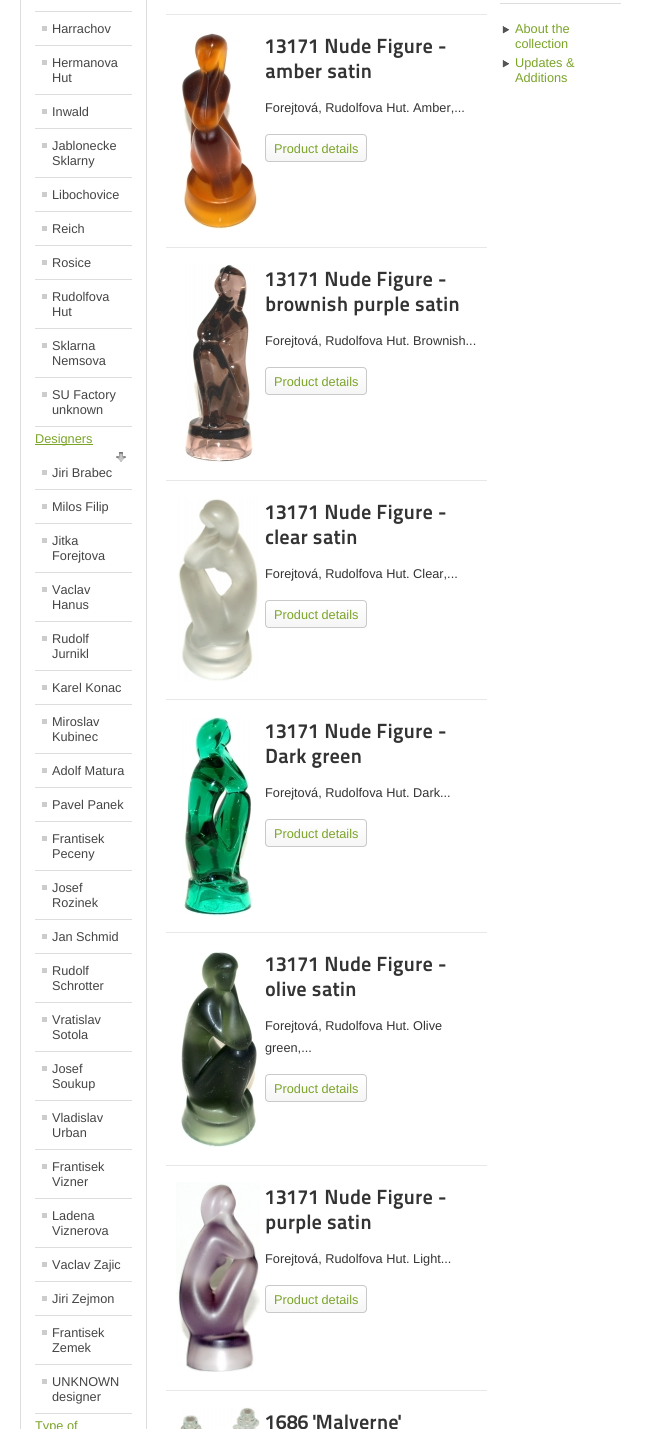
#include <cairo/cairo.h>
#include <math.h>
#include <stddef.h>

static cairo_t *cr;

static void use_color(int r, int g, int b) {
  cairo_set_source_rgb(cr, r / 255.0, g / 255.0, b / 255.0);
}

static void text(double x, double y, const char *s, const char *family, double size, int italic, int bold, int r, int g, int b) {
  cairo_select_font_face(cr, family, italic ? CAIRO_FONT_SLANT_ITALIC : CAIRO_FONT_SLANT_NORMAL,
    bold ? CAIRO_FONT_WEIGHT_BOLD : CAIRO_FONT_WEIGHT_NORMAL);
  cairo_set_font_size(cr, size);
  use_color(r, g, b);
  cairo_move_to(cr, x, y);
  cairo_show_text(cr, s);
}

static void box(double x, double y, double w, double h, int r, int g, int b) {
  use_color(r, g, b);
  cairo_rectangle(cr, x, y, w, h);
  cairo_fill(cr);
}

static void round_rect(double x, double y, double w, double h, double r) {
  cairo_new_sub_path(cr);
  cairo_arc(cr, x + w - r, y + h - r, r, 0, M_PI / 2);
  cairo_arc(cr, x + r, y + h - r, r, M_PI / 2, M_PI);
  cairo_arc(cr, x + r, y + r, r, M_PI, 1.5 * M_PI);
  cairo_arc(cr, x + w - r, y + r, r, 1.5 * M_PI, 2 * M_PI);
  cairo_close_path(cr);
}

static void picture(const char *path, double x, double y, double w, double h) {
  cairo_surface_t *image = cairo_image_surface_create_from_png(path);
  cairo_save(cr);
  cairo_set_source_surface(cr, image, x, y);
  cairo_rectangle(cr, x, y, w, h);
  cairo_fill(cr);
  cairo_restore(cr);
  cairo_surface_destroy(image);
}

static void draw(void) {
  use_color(255, 255, 255);
  cairo_paint(cr);
  cairo_rectangle(cr, 20.5, -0.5, 126, 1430);
  use_color(221, 221, 221);
  cairo_set_line_width(cr, 1);
  cairo_stroke(cr);
  box(35, 11, 97, 1, 221, 221, 221);
  box(35, 45, 97, 1, 221, 221, 221);
  box(42, 26, 5, 5, 204, 204, 204);
  box(35, 94, 97, 1, 221, 221, 221);
  box(42, 60, 5, 5, 204, 204, 204);
  box(35, 128, 97, 1, 221, 221, 221);
  box(42, 109, 5, 5, 204, 204, 204);
  box(35, 177, 97, 1, 221, 221, 221);
  box(42, 143, 5, 5, 204, 204, 204);
  box(35, 211, 97, 1, 221, 221, 221);
  box(42, 192, 5, 5, 204, 204, 204);
  box(35, 245, 97, 1, 221, 221, 221);
  box(42, 226, 5, 5, 204, 204, 204);
  box(35, 279, 97, 1, 221, 221, 221);
  box(42, 260, 5, 5, 204, 204, 204);
  box(35, 328, 97, 1, 221, 221, 221);
  box(42, 294, 5, 5, 204, 204, 204);
  box(35, 377, 97, 1, 221, 221, 221);
  box(42, 343, 5, 5, 204, 204, 204);
  box(35, 426, 97, 1, 221, 221, 221);
  box(42, 392, 5, 5, 204, 204, 204);
  box(35, 444, 58, 1, 123, 164, 40);
  picture("img_01.png", 116, 452, 10, 10);
  box(35, 489, 97, 1, 221, 221, 221);
  box(42, 470, 5, 5, 204, 204, 204);
  box(35, 523, 97, 1, 221, 221, 221);
  box(42, 504, 5, 5, 204, 204, 204);
  box(35, 572, 97, 1, 221, 221, 221);
  box(42, 538, 5, 5, 204, 204, 204);
  box(35, 621, 97, 1, 221, 221, 221);
  box(42, 587, 5, 5, 204, 204, 204);
  box(35, 670, 97, 1, 221, 221, 221);
  box(42, 636, 5, 5, 204, 204, 204);
  box(35, 704, 97, 1, 221, 221, 221);
  box(42, 685, 5, 5, 204, 204, 204);
  box(35, 753, 97, 1, 221, 221, 221);
  box(42, 719, 5, 5, 204, 204, 204);
  box(35, 787, 97, 1, 221, 221, 221);
  box(42, 768, 5, 5, 204, 204, 204);
  box(35, 821, 97, 1, 221, 221, 221);
  box(42, 802, 5, 5, 204, 204, 204);
  box(35, 870, 97, 1, 221, 221, 221);
  box(42, 836, 5, 5, 204, 204, 204);
  box(35, 919, 97, 1, 221, 221, 221);
  box(42, 885, 5, 5, 204, 204, 204);
  box(35, 953, 97, 1, 221, 221, 221);
  box(42, 934, 5, 5, 204, 204, 204);
  box(35, 1002, 97, 1, 221, 221, 221);
  box(42, 968, 5, 5, 204, 204, 204);
  box(35, 1051, 97, 1, 221, 221, 221);
  box(42, 1017, 5, 5, 204, 204, 204);
  box(35, 1100, 97, 1, 221, 221, 221);
  box(42, 1066, 5, 5, 204, 204, 204);
  box(35, 1149, 97, 1, 221, 221, 221);
  box(42, 1115, 5, 5, 204, 204, 204);
  box(35, 1198, 97, 1, 221, 221, 221);
  box(42, 1164, 5, 5, 204, 204, 204);
  box(35, 1247, 97, 1, 221, 221, 221);
  box(42, 1213, 5, 5, 204, 204, 204);
  box(35, 1281, 97, 1, 221, 221, 221);
  box(42, 1262, 5, 5, 204, 204, 204);
  box(35, 1315, 97, 1, 221, 221, 221);
  box(42, 1296, 5, 5, 204, 204, 204);
  box(35, 1364, 97, 1, 221, 221, 221);
  box(42, 1330, 5, 5, 204, 204, 204);
  box(35, 1413, 97, 1, 221, 221, 221);
  box(42, 1379, 5, 5, 204, 204, 204);
  box(166, 14, 321, 1, 233, 232, 232);
  picture("img_02.png", 182, 33, 76, 197);
  picture("img_03.png", 265, 135, 102, 27);
  round_rect(265.5, 134.5, 101, 27, 3.5);
  use_color(202, 201, 201);
  cairo_stroke(cr);
  box(166, 247, 321, 1, 233, 232, 232);
  picture("img_04.png", 184, 264, 70, 198);
  picture("img_03.png", 265, 368, 102, 27);
  round_rect(265.5, 367.5, 101, 27, 3.5);
  use_color(202, 201, 201);
  cairo_stroke(cr);
  box(166, 480, 321, 1, 233, 232, 232);
  picture("img_05.png", 178, 498, 81, 183);
  picture("img_03.png", 265, 601, 102, 27);
  round_rect(265.5, 600.5, 101, 27, 3.5);
  use_color(202, 201, 201);
  cairo_stroke(cr);
  box(166, 699, 321, 1, 233, 232, 232);
  picture("img_06.png", 183, 717, 70, 199);
  picture("img_03.png", 265, 820, 102, 27);
  round_rect(265.5, 819.5, 101, 27, 3.5);
  use_color(202, 201, 201);
  cairo_stroke(cr);
  box(166, 932, 321, 1, 233, 232, 232);
  picture("img_07.png", 181, 951, 76, 196);
  picture("img_03.png", 265, 1075, 102, 27);
  round_rect(265.5, 1074.5, 101, 27, 3.5);
  use_color(202, 201, 201);
  cairo_stroke(cr);
  box(166, 1165, 321, 1, 233, 232, 232);
  picture("img_08.png", 176, 1182, 84, 190);
  picture("img_03.png", 265, 1286, 102, 27);
  round_rect(265.5, 1285.5, 101, 27, 3.5);
  use_color(202, 201, 201);
  cairo_stroke(cr);
  box(166, 1390, 321, 1, 233, 232, 232);
  picture("img_09.png", 180, 1407, 80, 22);
  box(500, 3, 121, 1, 221, 221, 221);
  picture("img_10.png", 502, 26, 8, 8);
  picture("img_10.png", 502, 60, 8, 8);
  text(52, 33, "Harrachov", "Liberation Sans", 12.75, 0, 0, 68, 68, 68);
  text(52, 67, "Hermanova", "Liberation Sans", 12.75, 0, 0, 68, 68, 68);
  text(52, 82, "Hut", "Liberation Sans", 12.75, 0, 0, 68, 68, 68);
  text(52, 116, "Inwald", "Liberation Sans", 12.75, 0, 0, 68, 68, 68);
  text(52, 150, "Jablonecke", "Liberation Sans", 12.75, 0, 0, 68, 68, 68);
  text(52, 165, "Sklarny", "Liberation Sans", 12.75, 0, 0, 68, 68, 68);
  text(52, 199, "Libochovice", "Liberation Sans", 12.75, 0, 0, 68, 68, 68);
  text(52, 233, "Reich", "Liberation Sans", 12.75, 0, 0, 68, 68, 68);
  text(52, 267, "Rosice", "Liberation Sans", 12.75, 0, 0, 68, 68, 68);
  text(52, 301, "Rudolfova", "Liberation Sans", 12.75, 0, 0, 68, 68, 68);
  text(52, 316, "Hut", "Liberation Sans", 12.75, 0, 0, 68, 68, 68);
  text(52, 350, "Sklarna", "Liberation Sans", 12.75, 0, 0, 68, 68, 68);
  text(52, 365, "Nemsova", "Liberation Sans", 12.75, 0, 0, 68, 68, 68);
  text(52, 399, "SU Factory", "Liberation Sans", 12.75, 0, 0, 68, 68, 68);
  text(52, 414, "unknown", "Liberation Sans", 12.75, 0, 0, 68, 68, 68);
  text(35, 443, "Designers", "Liberation Sans", 12.75, 0, 0, 123, 164, 40);
  text(52, 477, "Jiri Brabec", "Liberation Sans", 12.75, 0, 0, 68, 68, 68);
  text(52, 511, "Milos Filip", "Liberation Sans", 12.75, 0, 0, 68, 68, 68);
  text(52, 545, "Jitka", "Liberation Sans", 12.75, 0, 0, 68, 68, 68);
  text(52, 560, "Forejtova", "Liberation Sans", 12.75, 0, 0, 68, 68, 68);
  text(52, 594, "Vaclav", "Liberation Sans", 12.75, 0, 0, 68, 68, 68);
  text(52, 609, "Hanus", "Liberation Sans", 12.75, 0, 0, 68, 68, 68);
  text(52, 643, "Rudolf", "Liberation Sans", 12.75, 0, 0, 68, 68, 68);
  text(52, 658, "Jurnikl", "Liberation Sans", 12.75, 0, 0, 68, 68, 68);
  text(52, 692, "Karel Konac", "Liberation Sans", 12.75, 0, 0, 68, 68, 68);
  text(52, 726, "Miroslav", "Liberation Sans", 12.75, 0, 0, 68, 68, 68);
  text(52, 741, "Kubinec", "Liberation Sans", 12.75, 0, 0, 68, 68, 68);
  text(52, 775, "Adolf Matura", "Liberation Sans", 12.75, 0, 0, 68, 68, 68);
  text(52, 809, "Pavel Panek", "Liberation Sans", 12.75, 0, 0, 68, 68, 68);
  text(52, 843, "Frantisek", "Liberation Sans", 12.75, 0, 0, 68, 68, 68);
  text(52, 858, "Peceny", "Liberation Sans", 12.75, 0, 0, 68, 68, 68);
  text(52, 892, "Josef", "Liberation Sans", 12.75, 0, 0, 68, 68, 68);
  text(52, 907, "Rozinek", "Liberation Sans", 12.75, 0, 0, 68, 68, 68);
  text(52, 941, "Jan Schmid", "Liberation Sans", 12.75, 0, 0, 68, 68, 68);
  text(52, 975, "Rudolf", "Liberation Sans", 12.75, 0, 0, 68, 68, 68);
  text(52, 990, "Schrotter", "Liberation Sans", 12.75, 0, 0, 68, 68, 68);
  text(52, 1024, "Vratislav", "Liberation Sans", 12.75, 0, 0, 68, 68, 68);
  text(52, 1039, "Sotola", "Liberation Sans", 12.75, 0, 0, 68, 68, 68);
  text(52, 1073, "Josef", "Liberation Sans", 12.75, 0, 0, 68, 68, 68);
  text(52, 1088, "Soukup", "Liberation Sans", 12.75, 0, 0, 68, 68, 68);
  text(52, 1122, "Vladislav", "Liberation Sans", 12.75, 0, 0, 68, 68, 68);
  text(52, 1137, "Urban", "Liberation Sans", 12.75, 0, 0, 68, 68, 68);
  text(52, 1171, "Frantisek", "Liberation Sans", 12.75, 0, 0, 68, 68, 68);
  text(52, 1186, "Vizner", "Liberation Sans", 12.75, 0, 0, 68, 68, 68);
  text(52, 1220, "Ladena", "Liberation Sans", 12.75, 0, 0, 68, 68, 68);
  text(52, 1235, "Viznerova", "Liberation Sans", 12.75, 0, 0, 68, 68, 68);
  text(52, 1269, "Vaclav Zajic", "Liberation Sans", 12.75, 0, 0, 68, 68, 68);
  text(52, 1303, "Jiri Zejmon", "Liberation Sans", 12.75, 0, 0, 68, 68, 68);
  text(52, 1337, "Frantisek", "Liberation Sans", 12.75, 0, 0, 68, 68, 68);
  text(52, 1352, "Zemek", "Liberation Sans", 12.75, 0, 0, 68, 68, 68);
  text(52, 1386, "UNKNOWN", "Liberation Sans", 12.75, 0, 0, 68, 68, 68);
  text(52, 1401, "designer", "Liberation Sans", 12.75, 0, 0, 68, 68, 68);
  text(35, 1430, "Type of", "Liberation Sans", 12.75, 0, 0, 123, 164, 40);
  text(265, 53, "13171 Nude Figure -", "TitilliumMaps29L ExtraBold", 20.5, 0, 0, 51, 51, 51);
  text(265, 78, "amber satin", "TitilliumMaps29L ExtraBold", 20.5, 0, 0, 51, 51, 51);
  text(265, 112, "Forejtová, Rudolfova Hut. Amber,...", "Liberation Sans", 12.75, 0, 0, 51, 51, 51);
  text(274, 153, "Product details", "Liberation Sans", 12.75, 0, 0, 123, 164, 40);
  text(265, 286, "13171 Nude Figure -", "TitilliumMaps29L ExtraBold", 20.5, 0, 0, 51, 51, 51);
  text(265, 311, "brownish purple satin", "TitilliumMaps29L ExtraBold", 20.5, 0, 0, 51, 51, 51);
  text(265, 345, "Forejtová, Rudolfova Hut. Brownish...", "Liberation Sans", 12.75, 0, 0, 51, 51, 51);
  text(274, 386, "Product details", "Liberation Sans", 12.75, 0, 0, 123, 164, 40);
  text(265, 519, "13171 Nude Figure -", "TitilliumMaps29L ExtraBold", 20.5, 0, 0, 51, 51, 51);
  text(265, 544, "clear satin", "TitilliumMaps29L ExtraBold", 20.5, 0, 0, 51, 51, 51);
  text(265, 578, "Forejtová, Rudolfova Hut. Clear,...", "Liberation Sans", 12.75, 0, 0, 51, 51, 51);
  text(274, 619, "Product details", "Liberation Sans", 12.75, 0, 0, 123, 164, 40);
  text(265, 738, "13171 Nude Figure -", "TitilliumMaps29L ExtraBold", 20.5, 0, 0, 51, 51, 51);
  text(265, 763, "Dark green", "TitilliumMaps29L ExtraBold", 20.5, 0, 0, 51, 51, 51);
  text(265, 797, "Forejtová, Rudolfova Hut. Dark...", "Liberation Sans", 12.75, 0, 0, 51, 51, 51);
  text(274, 838, "Product details", "Liberation Sans", 12.75, 0, 0, 123, 164, 40);
  text(265, 971, "13171 Nude Figure -", "TitilliumMaps29L ExtraBold", 20.5, 0, 0, 51, 51, 51);
  text(265, 996, "olive satin", "TitilliumMaps29L ExtraBold", 20.5, 0, 0, 51, 51, 51);
  text(265, 1030, "Forejtová, Rudolfova Hut. Olive", "Liberation Sans", 12.75, 0, 0, 51, 51, 51);
  text(265, 1052, "green,...", "Liberation Sans", 12.75, 0, 0, 51, 51, 51);
  text(274, 1093, "Product details", "Liberation Sans", 12.75, 0, 0, 123, 164, 40);
  text(265, 1204, "13171 Nude Figure -", "TitilliumMaps29L ExtraBold", 20.5, 0, 0, 51, 51, 51);
  text(265, 1229, "purple satin", "TitilliumMaps29L ExtraBold", 20.5, 0, 0, 51, 51, 51);
  text(265, 1263, "Forejtová, Rudolfova Hut. Light...", "Liberation Sans", 12.75, 0, 0, 51, 51, 51);
  text(274, 1304, "Product details", "Liberation Sans", 12.75, 0, 0, 123, 164, 40);
  text(265, 1429, "1686 'Malverne'", "TitilliumMaps29L ExtraBold", 20.5, 0, 0, 51, 51, 51);
  text(515, 33, "About the", "Liberation Sans", 12.75, 0, 0, 123, 164, 40);
  text(515, 48, "collection", "Liberation Sans", 12.75, 0, 0, 123, 164, 40);
  text(515, 67, "Updates &", "Liberation Sans", 12.75, 0, 0, 123, 164, 40);
  text(515, 82, "Additions", "Liberation Sans", 12.75, 0, 0, 123, 164, 40);
}

int main(void) {
  cairo_surface_t *surface = cairo_image_surface_create(CAIRO_FORMAT_RGB24, 647, 1429);
  cr = cairo_create(surface);
  cairo_font_options_t *options = cairo_font_options_create();
  cairo_font_options_set_hint_metrics(options, CAIRO_HINT_METRICS_OFF);
  cairo_font_options_set_hint_style(options, CAIRO_HINT_STYLE_NONE);
  cairo_set_font_options(cr, options);
  cairo_set_miter_limit(cr, 4);
  draw();
  cairo_surface_write_to_png(surface, "out.png");
  cairo_font_options_destroy(options);
  cairo_destroy(cr);
  cairo_surface_destroy(surface);
  return 0;
}
